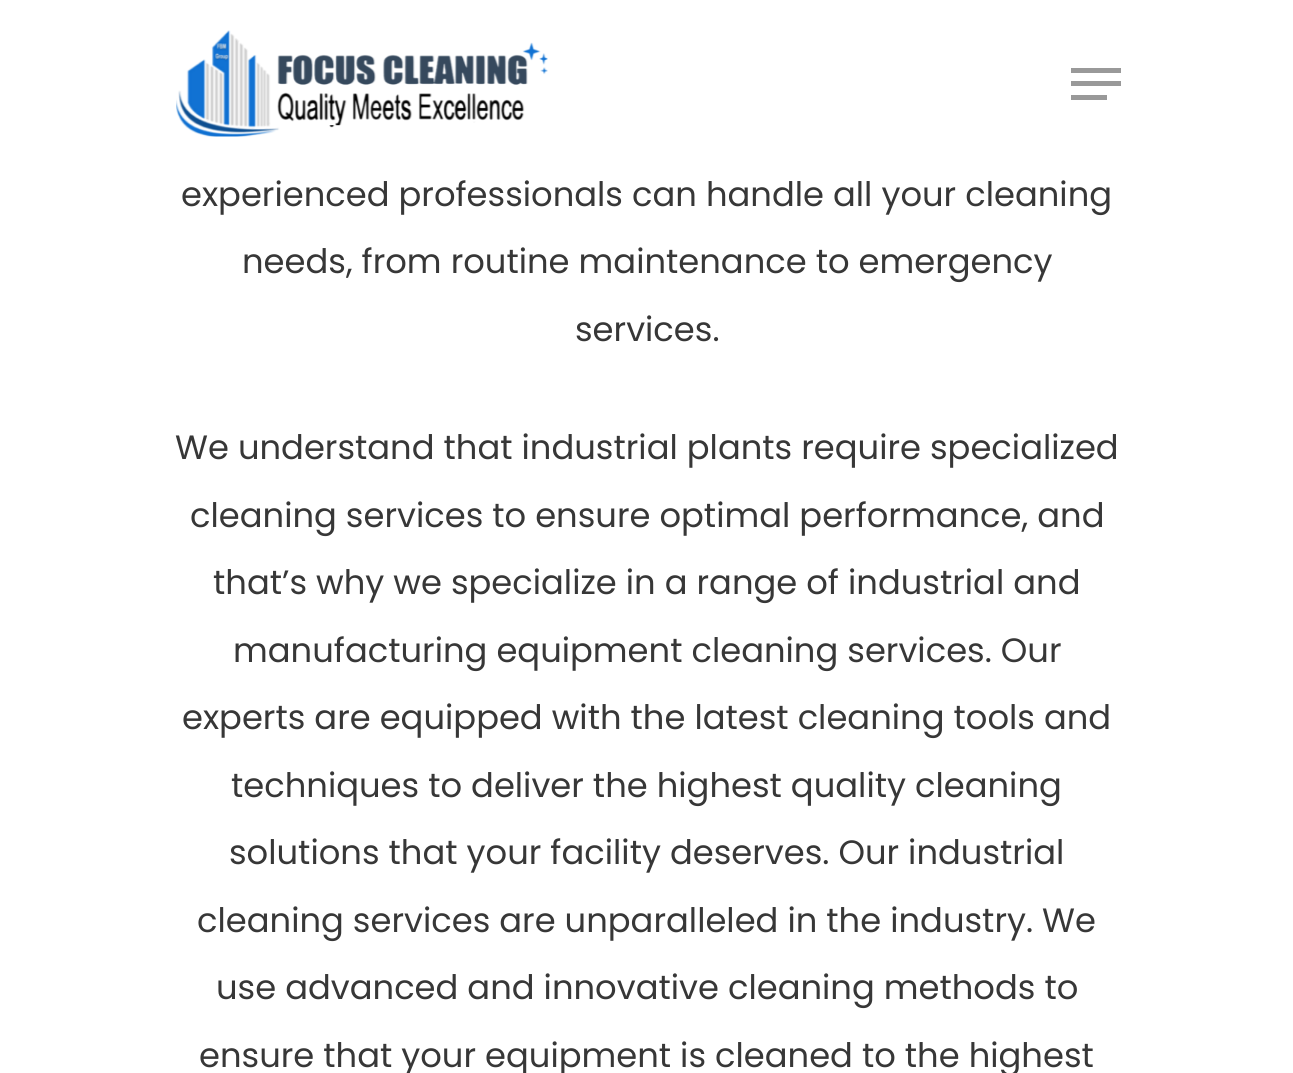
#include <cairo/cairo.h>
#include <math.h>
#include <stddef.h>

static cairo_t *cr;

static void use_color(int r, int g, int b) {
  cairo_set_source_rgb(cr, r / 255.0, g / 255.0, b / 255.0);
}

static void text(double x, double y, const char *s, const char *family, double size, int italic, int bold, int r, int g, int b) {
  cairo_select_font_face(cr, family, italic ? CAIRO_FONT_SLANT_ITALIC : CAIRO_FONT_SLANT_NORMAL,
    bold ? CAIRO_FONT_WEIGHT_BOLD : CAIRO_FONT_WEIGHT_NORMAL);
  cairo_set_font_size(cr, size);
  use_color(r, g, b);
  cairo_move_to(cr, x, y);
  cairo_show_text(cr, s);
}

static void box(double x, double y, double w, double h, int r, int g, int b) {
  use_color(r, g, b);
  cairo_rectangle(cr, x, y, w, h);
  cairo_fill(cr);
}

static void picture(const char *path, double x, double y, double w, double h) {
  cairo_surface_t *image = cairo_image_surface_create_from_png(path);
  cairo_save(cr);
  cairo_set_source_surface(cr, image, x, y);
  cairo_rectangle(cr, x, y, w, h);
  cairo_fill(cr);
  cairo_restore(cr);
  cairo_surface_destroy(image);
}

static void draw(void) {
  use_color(255, 255, 255);
  cairo_paint(cr);
  picture("img_01.png", 176, 30, 372, 107);
  box(1071, 68, 50, 5, 153, 153, 153);
  box(1071, 95, 36, 5, 153, 153, 153);
  box(1071, 81, 50, 5, 153, 153, 153);
  text(181, 206, "experienced professionals can handle all your cleaning", "Poppins", 33.75, 0, 0, 55, 55, 55);
  text(242, 273, "needs, from routine maintenance to emergency", "Poppins", 33.75, 0, 0, 55, 55, 55);
  text(575, 341, "services.", "Poppins", 33.75, 0, 0, 55, 55, 55);
  text(175, 459, "We understand that industrial plants require specialized", "Poppins", 33.75, 0, 0, 55, 55, 55);
  text(190, 527, "cleaning services to ensure optimal performance, and", "Poppins", 33.75, 0, 0, 55, 55, 55);
  text(213, 594, "that’s why we specialize in a range of industrial and", "Poppins", 33.75, 0, 0, 55, 55, 55);
  text(233, 662, "manufacturing equipment cleaning services. Our", "Poppins", 33.75, 0, 0, 55, 55, 55);
  text(182, 729, "experts are equipped with the latest cleaning tools and", "Poppins", 33.75, 0, 0, 55, 55, 55);
  text(231, 797, "techniques to deliver the highest quality cleaning", "Poppins", 33.75, 0, 0, 55, 55, 55);
  text(229, 864, "solutions that your facility deserves. Our industrial", "Poppins", 33.75, 0, 0, 55, 55, 55);
  text(197, 932, "cleaning services are unparalleled in the industry. We", "Poppins", 33.75, 0, 0, 55, 55, 55);
  text(216, 999, "use advanced and innovative cleaning methods to", "Poppins", 33.75, 0, 0, 55, 55, 55);
  text(199, 1067, "ensure that your equipment is cleaned to the highest", "Poppins", 33.75, 0, 0, 55, 55, 55);
}

int main(void) {
  cairo_surface_t *surface = cairo_image_surface_create(CAIRO_FORMAT_RGB24, 1293, 1073);
  cr = cairo_create(surface);
  cairo_font_options_t *options = cairo_font_options_create();
  cairo_font_options_set_hint_metrics(options, CAIRO_HINT_METRICS_OFF);
  cairo_font_options_set_hint_style(options, CAIRO_HINT_STYLE_NONE);
  cairo_set_font_options(cr, options);
  cairo_set_miter_limit(cr, 4);
  draw();
  cairo_surface_write_to_png(surface, "out.png");
  cairo_font_options_destroy(options);
  cairo_destroy(cr);
  cairo_surface_destroy(surface);
  return 0;
}
